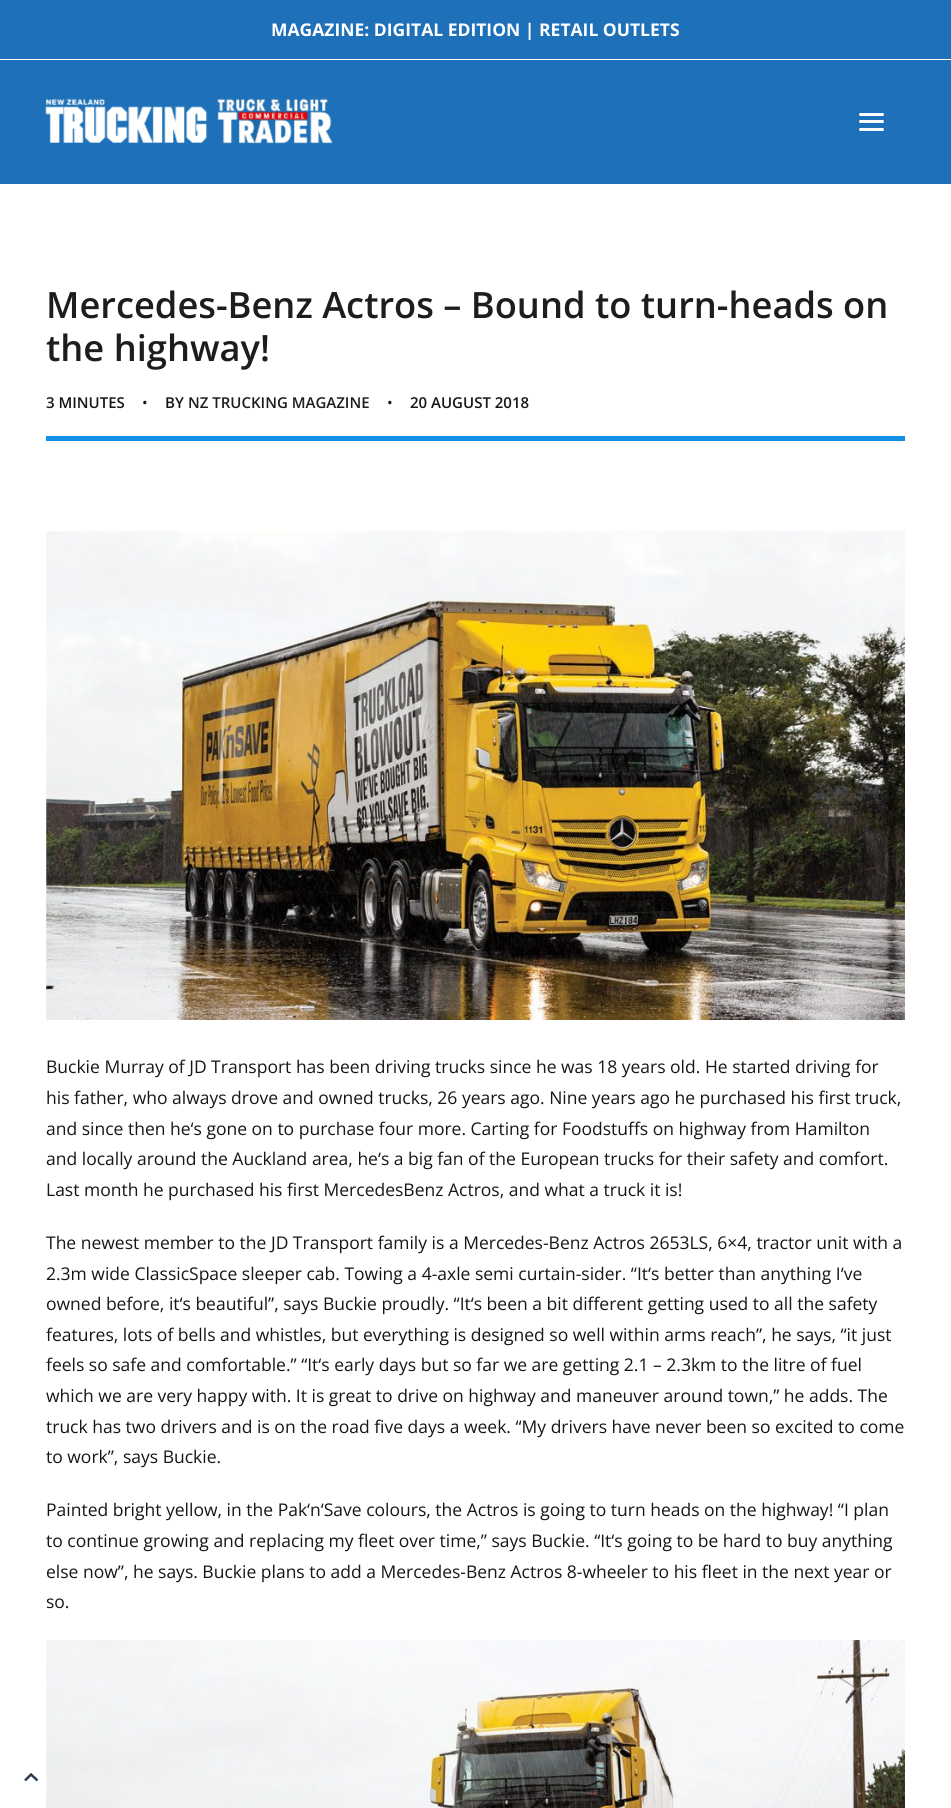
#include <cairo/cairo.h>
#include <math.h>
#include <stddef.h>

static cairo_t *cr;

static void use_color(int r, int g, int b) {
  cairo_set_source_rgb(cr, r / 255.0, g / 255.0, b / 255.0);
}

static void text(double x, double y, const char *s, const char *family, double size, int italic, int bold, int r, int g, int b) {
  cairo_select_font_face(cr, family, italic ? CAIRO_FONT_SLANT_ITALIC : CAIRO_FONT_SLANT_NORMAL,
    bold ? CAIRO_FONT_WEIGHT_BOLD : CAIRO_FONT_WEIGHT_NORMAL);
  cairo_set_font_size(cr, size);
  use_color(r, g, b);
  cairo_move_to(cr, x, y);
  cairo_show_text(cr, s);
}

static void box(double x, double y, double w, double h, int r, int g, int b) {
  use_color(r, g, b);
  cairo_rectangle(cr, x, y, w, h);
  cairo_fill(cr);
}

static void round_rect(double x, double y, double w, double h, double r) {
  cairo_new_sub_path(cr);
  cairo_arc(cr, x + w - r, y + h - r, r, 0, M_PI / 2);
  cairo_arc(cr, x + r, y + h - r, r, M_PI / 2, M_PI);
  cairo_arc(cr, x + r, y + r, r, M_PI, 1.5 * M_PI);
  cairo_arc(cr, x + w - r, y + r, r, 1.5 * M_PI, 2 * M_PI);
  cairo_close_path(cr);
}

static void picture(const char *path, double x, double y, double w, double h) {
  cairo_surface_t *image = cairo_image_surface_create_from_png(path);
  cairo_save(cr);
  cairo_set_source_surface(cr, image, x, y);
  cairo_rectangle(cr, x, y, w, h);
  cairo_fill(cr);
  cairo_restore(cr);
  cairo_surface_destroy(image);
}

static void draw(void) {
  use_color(255, 255, 255);
  cairo_paint(cr);
  box(0, 0, 951, 59, 30, 113, 184);
  box(0, 60, 951, 124, 30, 113, 184);
  picture("img_01.png", 45, 98, 163, 45);
  picture("img_02.png", 217, 98, 116, 46);
  use_color(255, 255, 255);
  round_rect(859, 120, 25, 3, 1.5);
  cairo_fill(cr);
  round_rect(859, 113, 25, 3, 1.5);
  cairo_fill(cr);
  round_rect(859, 128, 25, 3, 1.5);
  cairo_fill(cr);
  box(46, 436, 859, 5, 18, 145, 229);
  picture("img_03.png", 46, 531, 859, 489);
  picture("img_04.png", 46, 1640, 859, 168);
  cairo_new_path(cr);
  cairo_move_to(cr, 37.5, 1780.5);
  cairo_line_to(cr, 31, 1774.5);
  cairo_line_to(cr, 25, 1780.5);
  use_color(44, 62, 80);
  cairo_set_line_width(cr, 2.5);
  cairo_stroke(cr);
  text(271, 36, "MAGAZINE: DIGITAL EDITION | RETAIL OUTLETS", "Open Sans", 17.5, 0, 1, 255, 255, 255);
  text(46, 318, "Mercedes-Benz Actros – Bound to turn-heads on", "Open Sans SemiBold", 36.25, 0, 0, 27, 29, 31);
  text(46, 361, "the highway!", "Open Sans SemiBold", 36.25, 0, 0, 27, 29, 31);
  text(46, 408, "3 MINUTES", "Open Sans SemiBold", 15, 0, 0, 20, 22, 24);
  text(142, 408, "•", "Open Sans", 15, 0, 0, 20, 22, 24);
  text(165, 408, "BY", "Open Sans SemiBold", 15, 0, 0, 20, 22, 24);
  text(188, 408, "NZ TRUCKING MAGAZINE", "Open Sans SemiBold", 15, 0, 0, 27, 29, 31);
  text(387, 408, "•", "Open Sans", 15, 0, 0, 20, 22, 24);
  text(410, 408, "20 AUGUST 2018", "Open Sans SemiBold", 15, 0, 0, 20, 22, 24);
  text(46, 1073, "Buckie Murray of JD Transport has been driving trucks since he was 18 years old. He started driving for", "Open Sans", 17.5, 0, 0, 20, 22, 24);
  text(46, 1104, "his father, who always drove and owned trucks, 26 years ago. Nine years ago he purchased his first truck,", "Open Sans", 17.5, 0, 0, 20, 22, 24);
  text(46, 1135, "and since then he‘s gone on to purchase four more. Carting for Foodstuffs on highway from Hamilton", "Open Sans", 17.5, 0, 0, 20, 22, 24);
  text(46, 1165, "and locally around the Auckland area, he‘s a big fan of the European trucks for their safety and comfort.", "Open Sans", 17.5, 0, 0, 20, 22, 24);
  text(46, 1196, "Last month he purchased his first MercedesBenz Actros, and what a truck it is!", "Open Sans", 17.5, 0, 0, 20, 22, 24);
  text(46, 1249, "The newest member to the JD Transport family is a Mercedes-Benz Actros 2653LS, 6×4, tractor unit with a", "Open Sans", 17.5, 0, 0, 20, 22, 24);
  text(46, 1280, "2.3m wide ClassicSpace sleeper cab. Towing a 4-axle semi curtain-sider. “It‘s better than anything I‘ve", "Open Sans", 17.5, 0, 0, 20, 22, 24);
  text(46, 1310, "owned before, it‘s beautiful”, says Buckie proudly. “It‘s been a bit different getting used to all the safety", "Open Sans", 17.5, 0, 0, 20, 22, 24);
  text(46, 1341, "features, lots of bells and whistles, but everything is designed so well within arms reach”, he says, “it just", "Open Sans", 17.5, 0, 0, 20, 22, 24);
  text(46, 1371, "feels so safe and comfortable.” “It‘s early days but so far we are getting 2.1 – 2.3km to the litre of fuel", "Open Sans", 17.5, 0, 0, 20, 22, 24);
  text(46, 1402, "which we are very happy with. It is great to drive on highway and maneuver around town,” he adds. The", "Open Sans", 17.5, 0, 0, 20, 22, 24);
  text(46, 1433, "truck has two drivers and is on the road five days a week. “My drivers have never been so excited to come", "Open Sans", 17.5, 0, 0, 20, 22, 24);
  text(46, 1463, "to work”, says Buckie.", "Open Sans", 17.5, 0, 0, 20, 22, 24);
  text(46, 1516, "Painted bright yellow, in the Pak‘n‘Save colours, the Actros is going to turn heads on the highway! “I plan", "Open Sans", 17.5, 0, 0, 20, 22, 24);
  text(46, 1547, "to continue growing and replacing my fleet over time,” says Buckie. “It‘s going to be hard to buy anything", "Open Sans", 17.5, 0, 0, 20, 22, 24);
  text(46, 1578, "else now”, he says. Buckie plans to add a Mercedes-Benz Actros 8-wheeler to his fleet in the next year or", "Open Sans", 17.5, 0, 0, 20, 22, 24);
  text(46, 1608, "so.", "Open Sans", 17.5, 0, 0, 20, 22, 24);
}

int main(void) {
  cairo_surface_t *surface = cairo_image_surface_create(CAIRO_FORMAT_RGB24, 951, 1808);
  cr = cairo_create(surface);
  cairo_font_options_t *options = cairo_font_options_create();
  cairo_font_options_set_hint_metrics(options, CAIRO_HINT_METRICS_OFF);
  cairo_font_options_set_hint_style(options, CAIRO_HINT_STYLE_NONE);
  cairo_set_font_options(cr, options);
  cairo_set_miter_limit(cr, 4);
  draw();
  cairo_surface_write_to_png(surface, "out.png");
  cairo_font_options_destroy(options);
  cairo_destroy(cr);
  cairo_surface_destroy(surface);
  return 0;
}
